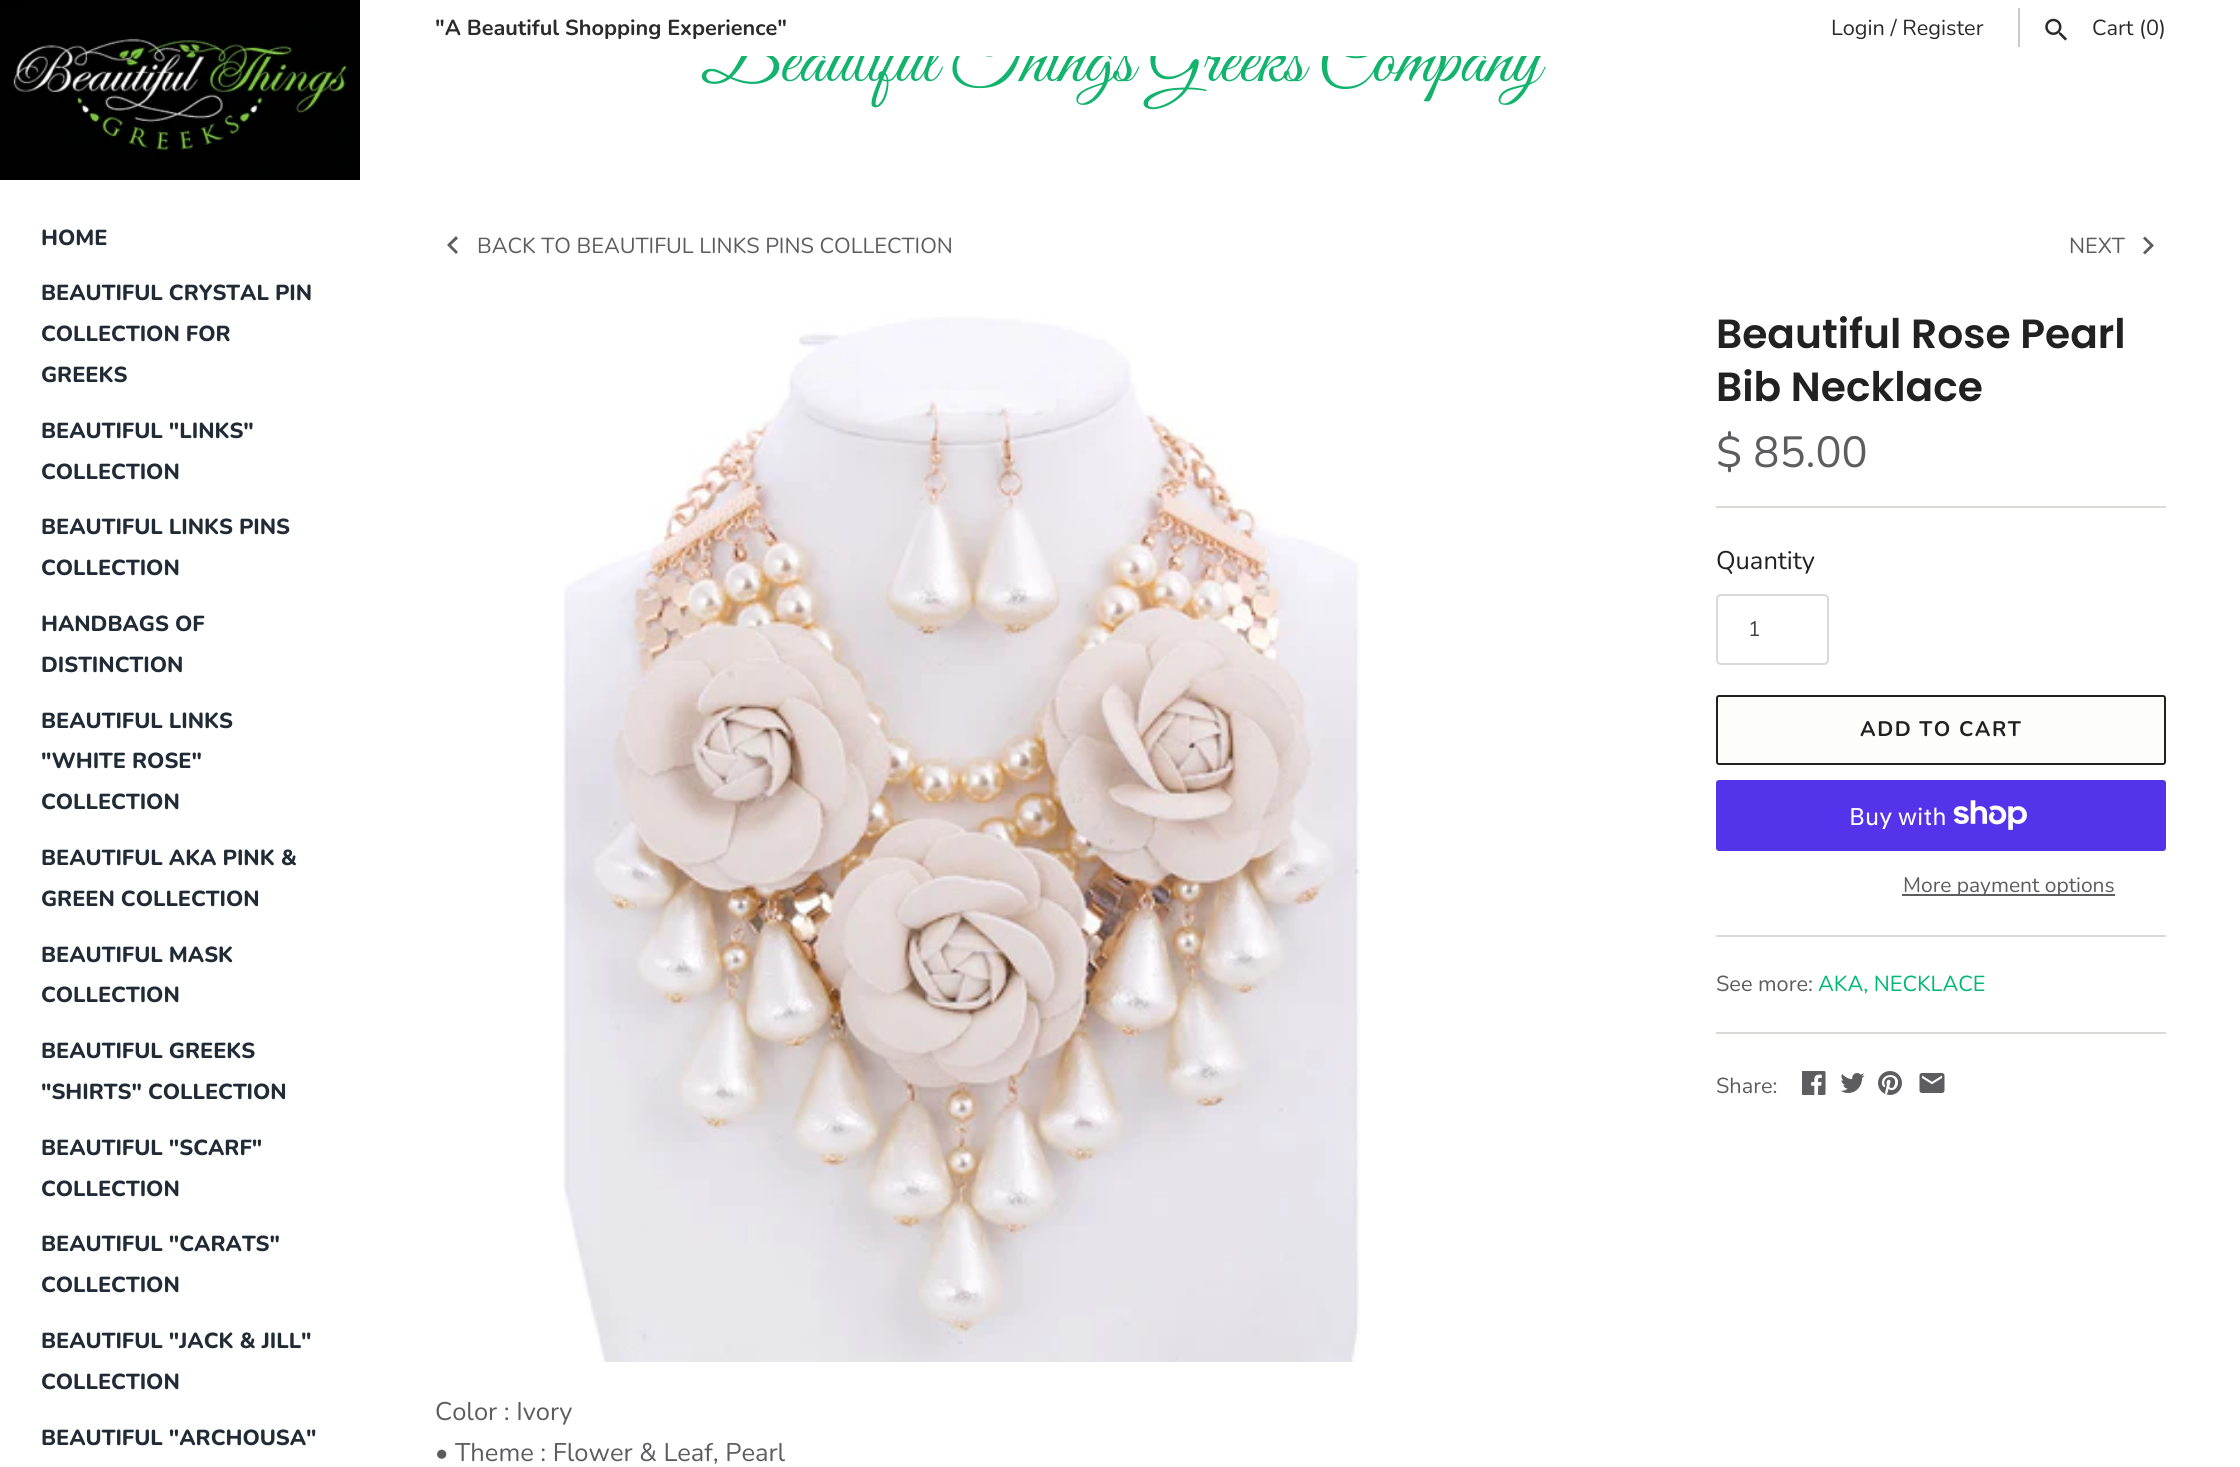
#include <cairo/cairo.h>
#include <math.h>
#include <stddef.h>

static cairo_t *cr;

static void use_color(int r, int g, int b) {
  cairo_set_source_rgb(cr, r / 255.0, g / 255.0, b / 255.0);
}

static void text(double x, double y, const char *s, const char *family, double size, int italic, int bold, int r, int g, int b) {
  cairo_select_font_face(cr, family, italic ? CAIRO_FONT_SLANT_ITALIC : CAIRO_FONT_SLANT_NORMAL,
    bold ? CAIRO_FONT_WEIGHT_BOLD : CAIRO_FONT_WEIGHT_NORMAL);
  cairo_set_font_size(cr, size);
  use_color(r, g, b);
  cairo_move_to(cr, x, y);
  cairo_show_text(cr, s);
}

static void spaced_text(double x, double y, const char *s, double letter, double word) {
  cairo_move_to(cr, x, y);
  while (*s) {
    char ch[5] = {0};
    int n = 0;
    do ch[n++] = *s++; while ((*s & 0xC0) == 0x80);
    cairo_show_text(cr, ch);
    cairo_rel_move_to(cr, letter + word * (*ch == ' '), 0);
  }
}

static void box(double x, double y, double w, double h, int r, int g, int b) {
  use_color(r, g, b);
  cairo_rectangle(cr, x, y, w, h);
  cairo_fill(cr);
}

static void round_rect(double x, double y, double w, double h, double r) {
  cairo_new_sub_path(cr);
  cairo_arc(cr, x + w - r, y + h - r, r, 0, M_PI / 2);
  cairo_arc(cr, x + r, y + h - r, r, M_PI / 2, M_PI);
  cairo_arc(cr, x + r, y + r, r, M_PI, 1.5 * M_PI);
  cairo_arc(cr, x + w - r, y + r, r, 1.5 * M_PI, 2 * M_PI);
  cairo_close_path(cr);
}

static void picture(const char *path, double x, double y, double w, double h) {
  cairo_surface_t *image = cairo_image_surface_create_from_png(path);
  cairo_save(cr);
  cairo_set_source_surface(cr, image, x, y);
  cairo_rectangle(cr, x, y, w, h);
  cairo_fill(cr);
  cairo_restore(cr);
  cairo_surface_destroy(image);
}

static void draw(void) {
  use_color(255, 255, 255);
  cairo_paint(cr);
  box(2018, 8, 2, 39, 202, 202, 202);
  picture("img_01.png", 2045, 18, 22, 23);
  picture("img_02.png", 0, 0, 360, 180);
  use_color(93, 93, 96);
  cairo_new_path(cr);
  cairo_move_to(cr, 458, 252);
  cairo_line_to(cr, 451, 245);
  cairo_line_to(cr, 458, 238.5);
  cairo_line_to(cr, 456, 236);
  cairo_line_to(cr, 447, 245);
  cairo_line_to(cr, 456, 254);
  cairo_close_path(cr);
  cairo_fill(cr);
  cairo_new_path(cr);
  cairo_move_to(cr, 2143, 252.5);
  cairo_line_to(cr, 2150, 245.5);
  cairo_line_to(cr, 2143, 238.5);
  cairo_line_to(cr, 2145, 236.5);
  cairo_line_to(cr, 2154, 245.5);
  cairo_line_to(cr, 2145, 254.5);
  cairo_close_path(cr);
  cairo_fill(cr);
  picture("img_03.png", 563, 317, 797, 1045);
  box(1716, 506, 450, 2, 219, 218, 215);
  round_rect(1717, 595, 111, 69, 4);
  use_color(217, 217, 217);
  cairo_stroke(cr);
  use_color(253, 253, 249);
  round_rect(1717, 696, 448, 68, 2);
  cairo_fill_preserve(cr);
  use_color(33, 33, 33);
  cairo_stroke(cr);
  use_color(84, 51, 235);
  round_rect(1716, 780, 450, 71, 3);
  cairo_fill(cr);
  picture("img_04.png", 1953, 800, 74, 30);
  box(1902, 894, 213, 2, 93, 93, 96);
  box(1716, 935, 450, 2, 219, 218, 215);
  box(1716, 1032, 450, 2, 219, 218, 215);
  picture("img_05.png", 1802, 1071, 24, 24);
  picture("img_06.png", 1841, 1073, 24, 20);
  picture("img_07.png", 1878, 1071, 24, 24);
  picture("img_08.png", 1919, 1073, 26, 20);
  text(701, 81, "Beautiful Things", "Great Vibes", 75, 0, 0, 18, 179, 108);
  text(1147, 81, "Greeks Company", "Great Vibes", 75, 0, 0, 18, 179, 108);
  box(707, 16, 836, 40, 255, 255, 255);
  text(435, 35, "\"A Beautiful Shopping Experience\"", "Nunito", 21.7, 0, 1, 43, 43, 43);
  text(1831, 35, "Login / Register", "Nunito", 21.7, 0, 0, 43, 43, 43);
  text(2092, 35, "Cart (0)", "Nunito", 21.7, 0, 0, 43, 43, 43);
  text(41, 245, "HOME", "Nunito ExtraBold", 21.7, 0, 0, 33, 43, 54);
  text(41, 300, "BEAUTIFUL CRYSTAL PIN", "Nunito ExtraBold", 21.7, 0, 0, 33, 43, 54);
  text(41, 341, "COLLECTION FOR", "Nunito ExtraBold", 21.7, 0, 0, 33, 43, 54);
  text(41, 382, "GREEKS", "Nunito ExtraBold", 21.7, 0, 0, 33, 43, 54);
  text(41, 438, "BEAUTIFUL \"LINKS\"", "Nunito ExtraBold", 21.7, 0, 0, 33, 43, 54);
  text(41, 479, "COLLECTION", "Nunito ExtraBold", 21.7, 0, 0, 33, 43, 54);
  text(41, 534, "BEAUTIFUL LINKS PINS", "Nunito ExtraBold", 21.7, 0, 0, 33, 43, 54);
  text(41, 575, "COLLECTION", "Nunito ExtraBold", 21.7, 0, 0, 33, 43, 54);
  text(41, 631, "HANDBAGS OF", "Nunito ExtraBold", 21.7, 0, 0, 33, 43, 54);
  text(41, 672, "DISTINCTION", "Nunito ExtraBold", 21.7, 0, 0, 33, 43, 54);
  text(41, 728, "BEAUTIFUL LINKS", "Nunito ExtraBold", 21.7, 0, 0, 33, 43, 54);
  text(41, 768, "\"WHITE ROSE\"", "Nunito ExtraBold", 21.7, 0, 0, 33, 43, 54);
  text(41, 809, "COLLECTION", "Nunito ExtraBold", 21.7, 0, 0, 33, 43, 54);
  text(41, 865, "BEAUTIFUL AKA PINK &", "Nunito ExtraBold", 21.7, 0, 0, 33, 43, 54);
  text(41, 906, "GREEN COLLECTION", "Nunito ExtraBold", 21.7, 0, 0, 33, 43, 54);
  text(41, 962, "BEAUTIFUL MASK", "Nunito ExtraBold", 21.7, 0, 0, 33, 43, 54);
  text(41, 1002, "COLLECTION", "Nunito ExtraBold", 21.7, 0, 0, 33, 43, 54);
  text(41, 1058, "BEAUTIFUL GREEKS", "Nunito ExtraBold", 21.7, 0, 0, 33, 43, 54);
  text(41, 1099, "\"SHIRTS\" COLLECTION", "Nunito ExtraBold", 21.7, 0, 0, 33, 43, 54);
  text(41, 1155, "BEAUTIFUL \"SCARF\"", "Nunito ExtraBold", 21.7, 0, 0, 33, 43, 54);
  text(41, 1196, "COLLECTION", "Nunito ExtraBold", 21.7, 0, 0, 33, 43, 54);
  text(41, 1251, "BEAUTIFUL \"CARATS\"", "Nunito ExtraBold", 21.7, 0, 0, 33, 43, 54);
  text(41, 1292, "COLLECTION", "Nunito ExtraBold", 21.7, 0, 0, 33, 43, 54);
  text(41, 1348, "BEAUTIFUL \"JACK & JILL\"", "Nunito ExtraBold", 21.7, 0, 0, 33, 43, 54);
  text(41, 1389, "COLLECTION", "Nunito ExtraBold", 21.7, 0, 0, 33, 43, 54);
  text(41, 1445, "BEAUTIFUL \"ARCHOUSA\"", "Nunito ExtraBold", 21.7, 0, 0, 33, 43, 54);
  text(477, 253, "BACK TO BEAUTIFUL LINKS PINS COLLECTION", "Nunito", 21.7, 0, 0, 93, 93, 96);
  text(2069, 253, "NEXT", "Nunito", 21.7, 0, 0, 93, 93, 96);
  text(1716, 348, "Beautiful Rose Pearl", "Poppins SemiBold", 40.75, 0, 0, 33, 33, 33);
  text(1716, 401, "Bib Necklace", "Poppins SemiBold", 40.75, 0, 0, 33, 33, 33);
  text(1716, 467, "$ 85.00", "Nunito", 43.5, 0, 0, 93, 93, 96);
  text(1716, 569, "Quantity", "Nunito", 25.5, 0, 0, 33, 33, 33);
  text(1748, 636, "1", "Nunito", 21, 0, 0, 68, 68, 68);
  cairo_select_font_face(cr, "Nunito", CAIRO_FONT_SLANT_NORMAL, CAIRO_FONT_WEIGHT_BOLD);
  use_color(33, 33, 33);
  spaced_text(1860, 736, "ADD TO CART", 1.5, 0);
  text(1849, 825, "Buy with", "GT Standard", 24, 0, 0, 255, 255, 255);
  text(1903, 892, "More payment options", "Nunito", 21, 0, 0, 93, 93, 96);
  text(1716, 991, "See more:", "Nunito", 21.7, 0, 0, 93, 93, 96);
  text(1818, 991, "AKA, NECKLACE", "Nunito", 21.7, 0, 0, 0, 183, 117);
  text(1716, 1093, "Share:", "Nunito", 21.7, 0, 0, 93, 93, 96);
  text(435, 1420, "Color : Ivory", "Nunito", 25.5, 0, 0, 93, 93, 96);
  text(435, 1461, "•", "Nunito", 25.5, 0, 1, 93, 93, 96);
  text(455, 1461, "Theme : Flower & Leaf, Pearl", "Nunito", 25.5, 0, 0, 93, 93, 96);
}

int main(void) {
  cairo_surface_t *surface = cairo_image_surface_create(CAIRO_FORMAT_RGB24, 2240, 1467);
  cr = cairo_create(surface);
  cairo_font_options_t *options = cairo_font_options_create();
  cairo_font_options_set_hint_metrics(options, CAIRO_HINT_METRICS_OFF);
  cairo_font_options_set_hint_style(options, CAIRO_HINT_STYLE_NONE);
  cairo_set_font_options(cr, options);
  cairo_set_miter_limit(cr, 4);
  draw();
  cairo_surface_write_to_png(surface, "out.png");
  cairo_font_options_destroy(options);
  cairo_destroy(cr);
  cairo_surface_destroy(surface);
  return 0;
}
